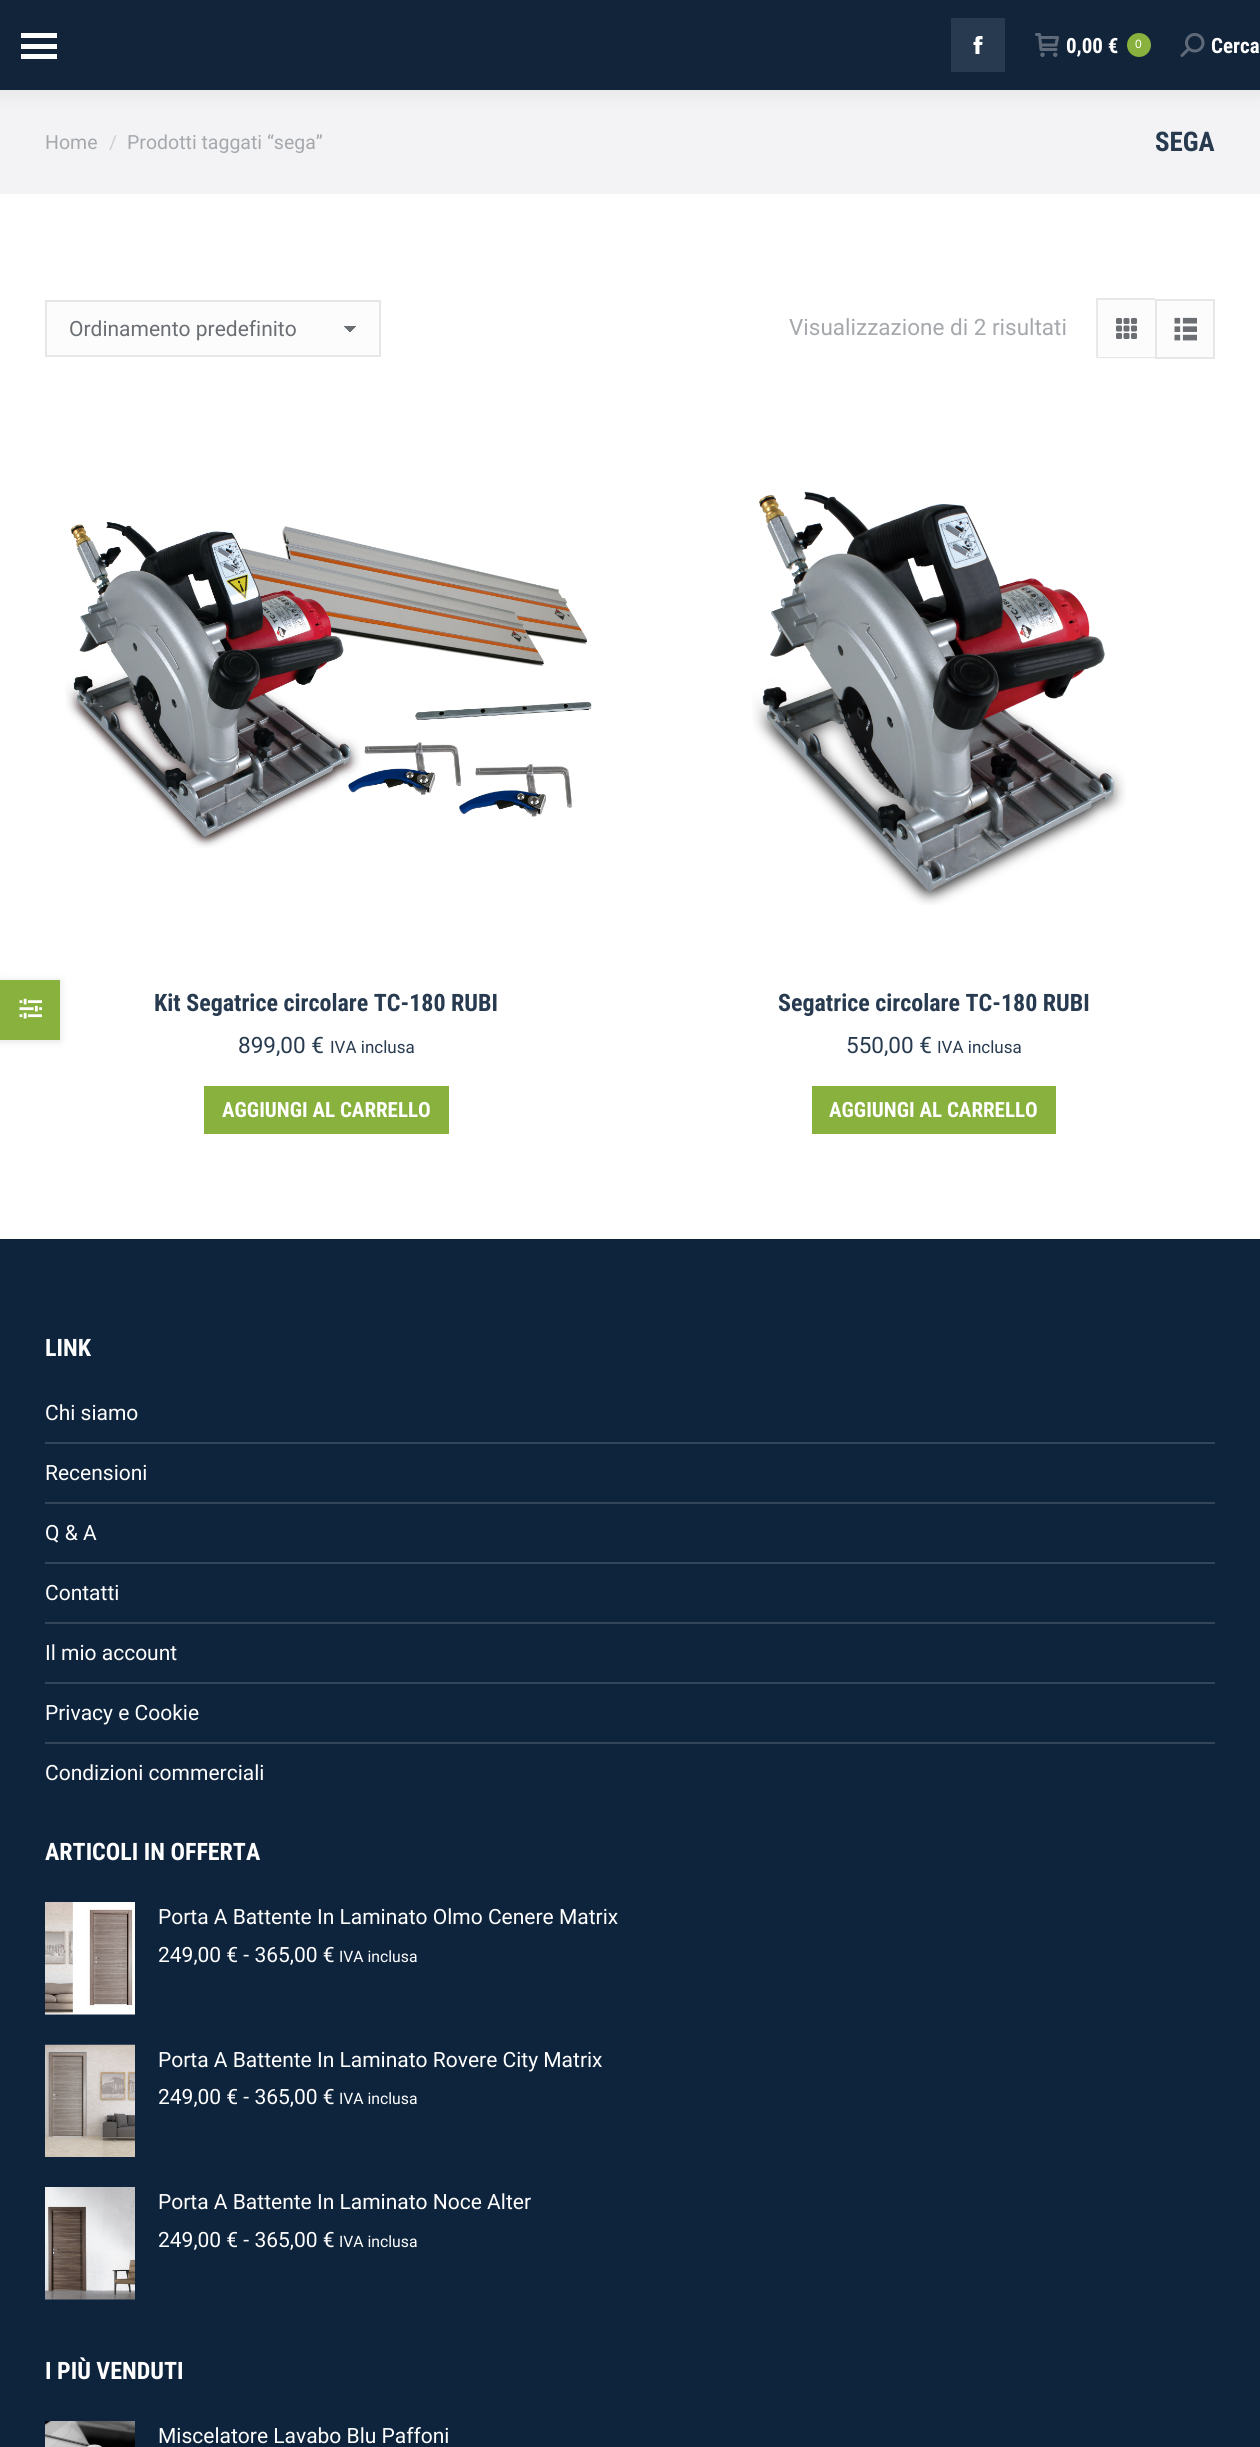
#include <cairo/cairo.h>
#include <math.h>
#include <stddef.h>

static cairo_t *cr;

static void use_color(int r, int g, int b) {
  cairo_set_source_rgb(cr, r / 255.0, g / 255.0, b / 255.0);
}

static void text(double x, double y, const char *s, const char *family, double size, int italic, int bold, int r, int g, int b) {
  cairo_select_font_face(cr, family, italic ? CAIRO_FONT_SLANT_ITALIC : CAIRO_FONT_SLANT_NORMAL,
    bold ? CAIRO_FONT_WEIGHT_BOLD : CAIRO_FONT_WEIGHT_NORMAL);
  cairo_set_font_size(cr, size);
  use_color(r, g, b);
  cairo_move_to(cr, x, y);
  cairo_show_text(cr, s);
}

static void box(double x, double y, double w, double h, int r, int g, int b) {
  use_color(r, g, b);
  cairo_rectangle(cr, x, y, w, h);
  cairo_fill(cr);
}

static void round_rect(double x, double y, double w, double h, double r) {
  cairo_new_sub_path(cr);
  cairo_arc(cr, x + w - r, y + h - r, r, 0, M_PI / 2);
  cairo_arc(cr, x + r, y + h - r, r, M_PI / 2, M_PI);
  cairo_arc(cr, x + r, y + r, r, M_PI, 1.5 * M_PI);
  cairo_arc(cr, x + w - r, y + r, r, 1.5 * M_PI, 2 * M_PI);
  cairo_close_path(cr);
}

static void shadow(double x, double y, double w, double h, double r, double blur, double alpha) {
  cairo_push_group_with_content(cr, CAIRO_CONTENT_ALPHA);
  cairo_set_operator(cr, CAIRO_OPERATOR_SOURCE);
  for (int i = 15; i >= -15 && fmin(w, h) + blur * i / 3 > 0; i -= 2) {
    double e = blur * i / 6;
    cairo_set_source_rgba(cr, 0, 0, 0, alpha * erfc((i - 1) / 8.5) / 2);
    round_rect(x - e, y - e, w + 2 * e, h + 2 * e, fmax(0, fmin(r + e + blur * .6, fmin(w, h) / 2 + e)));
    cairo_fill(cr);
  }
  cairo_pattern_t *soft = cairo_pop_group(cr);
  cairo_mask(cr, soft);
  cairo_pattern_destroy(soft);
}

static void picture(const char *path, double x, double y, double w, double h) {
  cairo_surface_t *image = cairo_image_surface_create_from_png(path);
  cairo_save(cr);
  cairo_set_source_surface(cr, image, x, y);
  cairo_rectangle(cr, x, y, w, h);
  cairo_fill(cr);
  cairo_restore(cr);
  cairo_surface_destroy(image);
}

static void draw(void) {
  cairo_pattern_t *gradient;
  use_color(255, 255, 255);
  cairo_paint(cr);
  box(0, 90, 1260, 104, 243, 243, 245);
  use_color(0, 0, 0);
  shadow(-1, -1, 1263, 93, 0, 11, 0.07);
  box(0, 0, 1260, 90, 18, 36, 58);
  box(21, 33, 36, 5, 255, 255, 255);
  box(21, 44, 36, 5, 255, 255, 255);
  box(21, 54, 36, 5, 255, 255, 255);
  box(951, 18, 54, 54, 39, 58, 79);
  picture("img_01.png", 973, 36, 10, 18);
  picture("img_02.png", 1035, 33, 24, 24);
  use_color(136, 178, 61);
  cairo_arc(cr, 1139, 45, 12, 0, 2 * M_PI);
  cairo_fill(cr);
  picture("img_03.png", 1180, 33, 25, 24);
  use_color(0, 0, 0);
  shadow(0, 981, 60, 60, 0, 4.5, 0.12);
  box(0, 980, 60, 60, 136, 178, 61);
  picture("img_04.png", 19, 998, 23, 21);
  box(47, 302, 332, 53, 252, 252, 252);
  gradient = cairo_pattern_create_linear(350, 325, 357, 332);
  cairo_pattern_add_color_stop_rgba(gradient, 0.5, 0.42, 0.435, 0.455, 1);
  cairo_pattern_add_color_stop_rgba(gradient, 0.5, 0.988, 0.988, 0.988, 1);
  cairo_set_source(cr, gradient);
  cairo_pattern_destroy(gradient);
  cairo_rectangle(cr, 350, 326, 7, 6);
  cairo_fill(cr);
  gradient = cairo_pattern_create_linear(342, 332, 350, 325);
  cairo_pattern_add_color_stop_rgba(gradient, 0.5, 0.988, 0.988, 0.988, 1);
  cairo_pattern_add_color_stop_rgba(gradient, 0.5, 0.42, 0.435, 0.455, 1);
  cairo_set_source(cr, gradient);
  cairo_pattern_destroy(gradient);
  cairo_rectangle(cr, 342, 326, 8, 6);
  cairo_fill(cr);
  cairo_rectangle(cr, 46, 301, 334, 55);
  use_color(230, 231, 232);
  cairo_stroke(cr);
  box(1097, 299, 58, 60, 252, 252, 252);
  cairo_set_source_rgba(cr, 0.647, 0.659, 0.675, 0.25);
  cairo_new_path(cr);
  cairo_move_to(cr, 1096, 298);
  cairo_line_to(cr, 1155, 298);
  cairo_line_to(cr, 1155, 300);
  cairo_line_to(cr, 1098, 300);
  cairo_close_path(cr);
  cairo_fill(cr);
  use_color(230, 231, 232);
  cairo_new_path(cr);
  cairo_move_to(cr, 1155, 358);
  cairo_line_to(cr, 1096, 358);
  cairo_line_to(cr, 1098, 357);
  cairo_line_to(cr, 1155, 357);
  cairo_close_path(cr);
  cairo_fill(cr);
  cairo_set_source_rgba(cr, 0.647, 0.659, 0.675, 0.25);
  cairo_new_path(cr);
  cairo_move_to(cr, 1096, 358);
  cairo_line_to(cr, 1096, 298);
  cairo_line_to(cr, 1098, 300);
  cairo_line_to(cr, 1098, 357);
  cairo_close_path(cr);
  cairo_fill(cr);
  picture("img_05.png", 1116, 318, 21, 21);
  use_color(252, 252, 252);
  cairo_rectangle(cr, 1156, 300, 58, 58);
  cairo_fill_preserve(cr);
  use_color(230, 231, 232);
  cairo_stroke(cr);
  picture("img_06.png", 1174, 317, 23, 24);
  picture("img_07.png", 65, 522, 527, 326);
  box(204, 1086, 245, 48, 136, 178, 61);
  picture("img_08.png", 752, 491, 374, 414);
  box(812, 1086, 244, 48, 136, 178, 61);
  box(0, 1239, 1260, 1208, 14, 36, 60);
  box(45, 1442, 1170, 2, 50, 69, 89);
  box(45, 1502, 1170, 2, 50, 69, 89);
  box(45, 1562, 1170, 2, 50, 69, 89);
  box(45, 1622, 1170, 2, 50, 69, 89);
  box(45, 1682, 1170, 2, 50, 69, 89);
  box(45, 1742, 1170, 2, 50, 69, 89);
  picture("img_09.png", 45, 1902, 90, 113);
  picture("img_10.png", 45, 2044, 90, 113);
  picture("img_11.png", 45, 2187, 90, 113);
  picture("img_12.png", 45, 2421, 90, 26);
  text(1066, 53, "0,00 €", "Roboto Condensed", 21, 0, 1, 255, 255, 255);
  text(1135, 48, "0", "Liberation Sans", 12, 0, 0, 255, 255, 255);
  text(1211, 53, "Cerca", "Roboto Condensed", 21, 0, 1, 255, 255, 255);
  text(45, 149, "Home", "Roboto", 19.5, 0, 0, 165, 168, 172);
  text(109, 149, "/", "Roboto", 19.5, 0, 0, 204, 206, 209);
  text(127, 149, "Prodotti taggati “sega”", "Roboto", 19.5, 0, 0, 165, 168, 172);
  text(1155, 151, "SEGA", "Roboto Condensed", 27, 0, 1, 39, 58, 79);
  text(69, 336, "Ordinamento predefinito", "Roboto", 21, 0, 0, 107, 111, 116);
  text(789, 335, "Visualizzazione di 2 risultati", "Roboto", 22.5, 0, 0, 165, 168, 172);
  text(154, 1011, "Kit Segatrice circolare TC-180 RUBI", "Roboto Condensed", 24, 0, 1, 39, 58, 79);
  text(238, 1053, "899,00 €", "Roboto", 22.5, 0, 0, 39, 58, 79);
  text(330, 1053, "IVA inclusa", "Roboto", 17, 0, 0, 39, 58, 79);
  text(222, 1117, "AGGIUNGI AL CARRELLO", "Roboto Condensed", 21, 0, 1, 255, 255, 255);
  text(778, 1011, "Segatrice circolare TC-180 RUBI", "Roboto Condensed", 24, 0, 1, 39, 58, 79);
  text(846, 1053, "550,00 €", "Roboto", 22.5, 0, 0, 39, 58, 79);
  text(937, 1053, "IVA inclusa", "Roboto", 17, 0, 0, 39, 58, 79);
  text(829, 1117, "AGGIUNGI AL CARRELLO", "Roboto Condensed", 21, 0, 1, 255, 255, 255);
  text(45, 1356, "LINK", "Roboto Condensed", 24, 0, 1, 255, 255, 255);
  text(45, 1420, "Chi siamo", "Roboto", 21, 0, 0, 255, 255, 255);
  text(45, 1480, "Recensioni", "Roboto", 21, 0, 0, 255, 255, 255);
  text(45, 1540, "Q & A", "Roboto", 21, 0, 0, 255, 255, 255);
  text(45, 1600, "Contatti", "Roboto", 21, 0, 0, 255, 255, 255);
  text(45, 1660, "Il mio account", "Roboto", 21, 0, 0, 255, 255, 255);
  text(45, 1720, "Privacy e Cookie", "Roboto", 21, 0, 0, 255, 255, 255);
  text(45, 1780, "Condizioni commerciali", "Roboto", 21, 0, 0, 255, 255, 255);
  text(45, 1860, "ARTICOLI IN OFFERTA", "Roboto Condensed", 24, 0, 1, 255, 255, 255);
  text(158, 1924, "Porta A Battente In Laminato Olmo Cenere Matrix", "Roboto", 21, 0, 0, 255, 255, 255);
  text(158, 1962, "249,00 € - 365,00 €", "Roboto", 21, 0, 0, 255, 255, 255);
  text(339, 1962, "IVA inclusa", "Roboto", 15.75, 0, 0, 255, 255, 255);
  text(158, 2067, "Porta A Battente In Laminato Rovere City Matrix", "Roboto", 21, 0, 0, 255, 255, 255);
  text(158, 2104, "249,00 € - 365,00 €", "Roboto", 21, 0, 0, 255, 255, 255);
  text(339, 2104, "IVA inclusa", "Roboto", 15.75, 0, 0, 255, 255, 255);
  text(158, 2209, "Porta A Battente In Laminato Noce Alter", "Roboto", 21, 0, 0, 255, 255, 255);
  text(158, 2247, "249,00 € - 365,00 €", "Roboto", 21, 0, 0, 255, 255, 255);
  text(339, 2247, "IVA inclusa", "Roboto", 15.75, 0, 0, 255, 255, 255);
  text(45, 2379, "I PIÙ VENDUTI", "Roboto Condensed", 24, 0, 1, 255, 255, 255);
  text(158, 2443, "Miscelatore Lavabo Blu Paffoni", "Roboto", 21, 0, 0, 255, 255, 255);
}

int main(void) {
  cairo_surface_t *surface = cairo_image_surface_create(CAIRO_FORMAT_RGB24, 1260, 2447);
  cr = cairo_create(surface);
  cairo_font_options_t *options = cairo_font_options_create();
  cairo_font_options_set_hint_metrics(options, CAIRO_HINT_METRICS_OFF);
  cairo_font_options_set_hint_style(options, CAIRO_HINT_STYLE_NONE);
  cairo_set_font_options(cr, options);
  cairo_set_miter_limit(cr, 4);
  draw();
  cairo_surface_write_to_png(surface, "out.png");
  cairo_font_options_destroy(options);
  cairo_destroy(cr);
  cairo_surface_destroy(surface);
  return 0;
}
